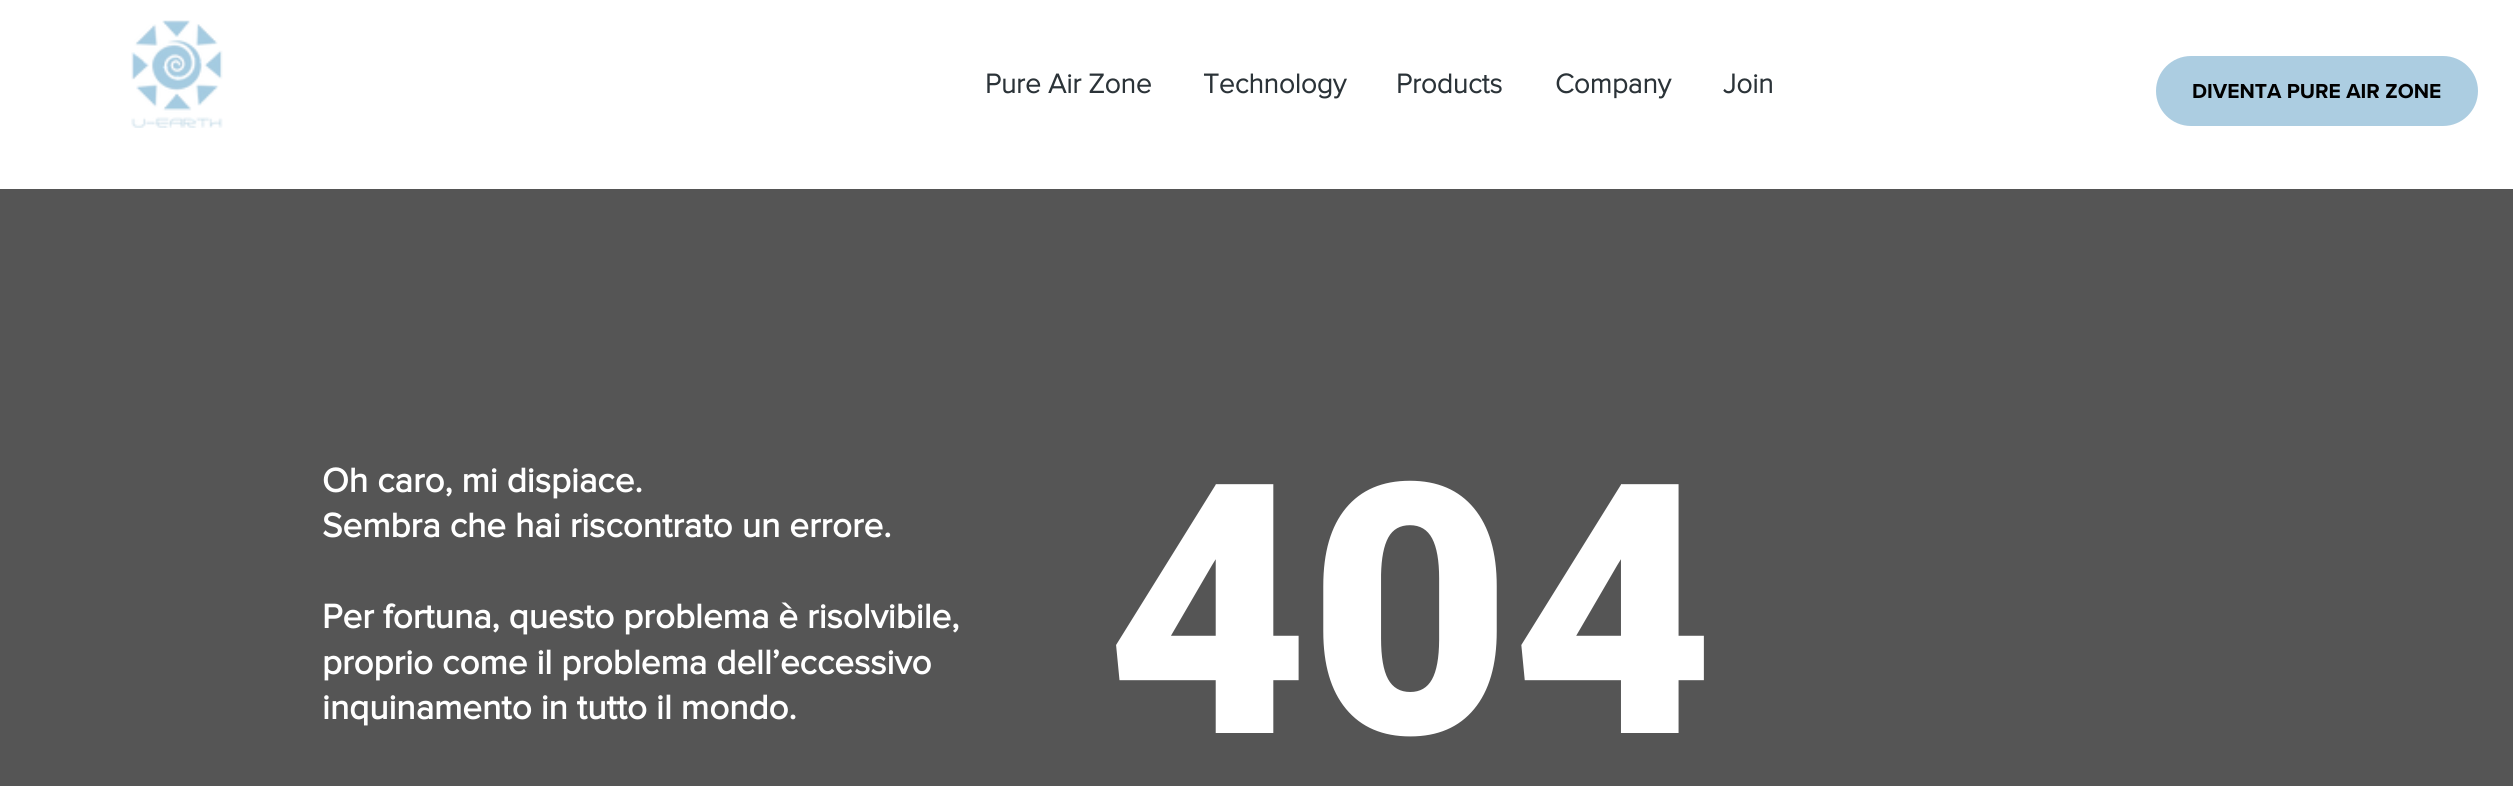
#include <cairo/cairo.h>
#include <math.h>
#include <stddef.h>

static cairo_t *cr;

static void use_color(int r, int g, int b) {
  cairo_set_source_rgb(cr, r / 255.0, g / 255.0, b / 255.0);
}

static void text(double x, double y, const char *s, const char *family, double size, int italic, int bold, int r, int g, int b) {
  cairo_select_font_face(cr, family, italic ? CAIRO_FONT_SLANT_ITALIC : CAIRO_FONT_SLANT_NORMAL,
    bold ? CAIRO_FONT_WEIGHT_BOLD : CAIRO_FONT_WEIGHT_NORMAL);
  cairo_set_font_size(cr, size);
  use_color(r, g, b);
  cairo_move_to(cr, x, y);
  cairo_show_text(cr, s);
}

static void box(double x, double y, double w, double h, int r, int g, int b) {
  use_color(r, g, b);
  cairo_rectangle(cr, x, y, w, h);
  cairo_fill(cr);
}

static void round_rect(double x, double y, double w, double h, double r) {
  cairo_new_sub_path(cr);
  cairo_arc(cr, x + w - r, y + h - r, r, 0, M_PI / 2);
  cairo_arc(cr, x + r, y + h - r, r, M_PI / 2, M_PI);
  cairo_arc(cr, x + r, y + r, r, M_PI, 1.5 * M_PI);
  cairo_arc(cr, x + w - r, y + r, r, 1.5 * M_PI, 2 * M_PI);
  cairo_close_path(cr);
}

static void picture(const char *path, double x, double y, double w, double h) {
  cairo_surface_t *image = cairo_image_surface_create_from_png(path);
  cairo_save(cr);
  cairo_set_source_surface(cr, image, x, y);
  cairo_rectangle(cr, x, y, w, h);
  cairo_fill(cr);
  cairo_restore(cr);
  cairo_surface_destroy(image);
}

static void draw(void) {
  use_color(255, 255, 255);
  cairo_paint(cr);
  picture("img_01.png", 131, 20, 92, 108);
  use_color(172, 205, 225);
  round_rect(2156, 56, 322, 70, 35);
  cairo_fill(cr);
  box(0, 189, 2513, 597, 85, 85, 85);
  text(985, 93, "Pure Air Zone", "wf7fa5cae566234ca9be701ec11", 28, 0, 1, 43, 51, 56);
  text(1203, 93, "Technology", "wf7fa5cae566234ca9be701ec11", 28, 0, 1, 43, 51, 56);
  text(1396, 93, "Products", "wf7fa5cae566234ca9be701ec11", 28, 0, 1, 43, 51, 56);
  text(1555, 93, "Company", "wf7fa5cae566234ca9be701ec11", 28, 0, 1, 43, 51, 56);
  text(1723, 93, "Join", "wf7fa5cae566234ca9be701ec11", 28, 0, 1, 43, 51, 56);
  text(2192, 98, "DIVENTA PURE AIR ZONE", "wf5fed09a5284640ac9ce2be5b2", 21, 0, 1, 0, 0, 0);
  text(322, 492, "Oh caro, mi dispiace.", "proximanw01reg", 35, 0, 1, 255, 255, 255);
  text(322, 537, "Sembra che hai riscontrato un errore.", "proximanw01reg", 35, 0, 1, 255, 255, 255);
  text(322, 628, "Per fortuna, questo problema è risolvibile,", "proximanw01reg", 35, 0, 1, 255, 255, 255);
  text(322, 674, "proprio come il problema dell’eccessivo", "proximanw01reg", 35, 0, 1, 255, 255, 255);
  text(322, 719, "inquinamento in tutto il mondo.", "proximanw01reg", 35, 0, 1, 255, 255, 255);
  text(1106, 733, "404", "Roboto Black", 350, 0, 0, 255, 255, 255);
}

int main(void) {
  cairo_surface_t *surface = cairo_image_surface_create(CAIRO_FORMAT_RGB24, 2513, 786);
  cr = cairo_create(surface);
  cairo_font_options_t *options = cairo_font_options_create();
  cairo_font_options_set_hint_metrics(options, CAIRO_HINT_METRICS_OFF);
  cairo_font_options_set_hint_style(options, CAIRO_HINT_STYLE_NONE);
  cairo_set_font_options(cr, options);
  cairo_set_miter_limit(cr, 4);
  draw();
  cairo_surface_write_to_png(surface, "out.png");
  cairo_font_options_destroy(options);
  cairo_destroy(cr);
  cairo_surface_destroy(surface);
  return 0;
}
